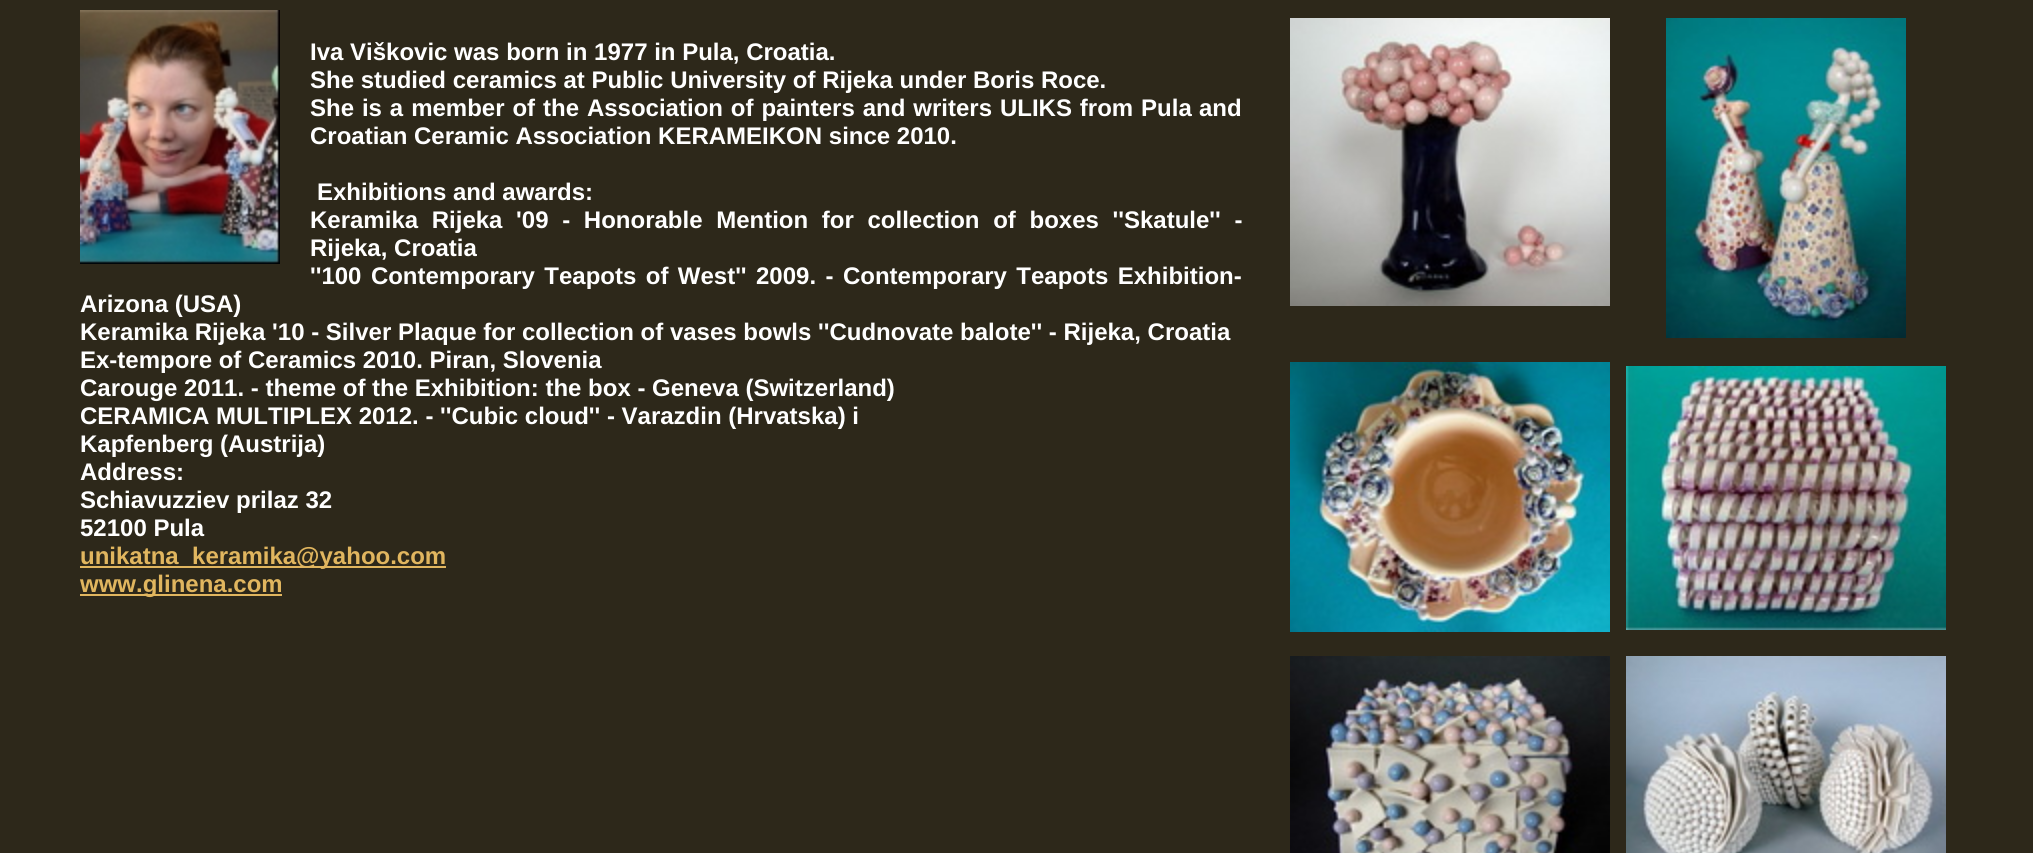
#include <cairo/cairo.h>
#include <math.h>
#include <stddef.h>

static cairo_t *cr;

static void use_color(int r, int g, int b) {
  cairo_set_source_rgb(cr, r / 255.0, g / 255.0, b / 255.0);
}

static void text(double x, double y, const char *s, const char *family, double size, int italic, int bold, int r, int g, int b) {
  cairo_select_font_face(cr, family, italic ? CAIRO_FONT_SLANT_ITALIC : CAIRO_FONT_SLANT_NORMAL,
    bold ? CAIRO_FONT_WEIGHT_BOLD : CAIRO_FONT_WEIGHT_NORMAL);
  cairo_set_font_size(cr, size);
  use_color(r, g, b);
  cairo_move_to(cr, x, y);
  cairo_show_text(cr, s);
}

static void spaced_text(double x, double y, const char *s, double letter, double word) {
  cairo_move_to(cr, x, y);
  while (*s) {
    char ch[5] = {0};
    int n = 0;
    do ch[n++] = *s++; while ((*s & 0xC0) == 0x80);
    cairo_show_text(cr, ch);
    cairo_rel_move_to(cr, letter + word * (*ch == ' '), 0);
  }
}

static void box(double x, double y, double w, double h, int r, int g, int b) {
  use_color(r, g, b);
  cairo_rectangle(cr, x, y, w, h);
  cairo_fill(cr);
}

static void picture(const char *path, double x, double y, double w, double h) {
  cairo_surface_t *image = cairo_image_surface_create_from_png(path);
  cairo_save(cr);
  cairo_set_source_surface(cr, image, x, y);
  cairo_rectangle(cr, x, y, w, h);
  cairo_fill(cr);
  cairo_restore(cr);
  cairo_surface_destroy(image);
}

static void draw(void) {
  use_color(45, 40, 26);
  cairo_paint(cr);
  picture("img_01.png", 80, 10, 200, 254);
  box(80, 566, 366, 2, 225, 182, 95);
  box(80, 594, 202, 2, 225, 182, 95);
  picture("img_02.png", 1290, 18, 320, 288);
  picture("img_03.png", 1666, 18, 240, 320);
  picture("img_04.png", 1290, 362, 320, 270);
  picture("img_05.png", 1626, 366, 320, 264);
  picture("img_06.png", 1290, 656, 320, 197);
  picture("img_07.png", 1626, 656, 320, 197);
  text(310, 60, "Iva Viškovic was born in 1977 in Pula, Croatia.", "Liberation Sans", 24, 0, 1, 255, 255, 255);
  text(310, 88, "She studied ceramics at Public University of Rijeka under Boris Roce.", "Liberation Sans", 24, 0, 1, 255, 255, 255);
  spaced_text(310, 116, "She is a member of the Association of painters and writers ULIKS from Pula", 0, 1.25);
  text(1199, 116, "and", "Liberation Sans", 24, 0, 1, 255, 255, 255);
  text(310, 144, "Croatian Ceramic Association KERAMEIKON since 2010.", "Liberation Sans", 24, 0, 1, 255, 255, 255);
  text(317, 200, "Exhibitions and awards:", "Liberation Sans", 24, 0, 1, 255, 255, 255);
  spaced_text(310, 228, "Keramika Rijeka '09 - Honorable Mention for collection of boxes ''Skatule'' -", 0, 7);
  text(310, 256, "Rijeka, Croatia", "Liberation Sans", 24, 0, 1, 255, 255, 255);
  spaced_text(310, 284, "''100 Contemporary Teapots of West'' 2009. - Contemporary Teapots Exhibition-", 0, 2.75);
  text(80, 312, "Arizona (USA)", "Liberation Sans", 24, 0, 1, 255, 255, 255);
  text(80, 340, "Keramika Rijeka '10 - Silver Plaque for collection of vases bowls ''Cudnovate balote'' - Rijeka, Croatia", "Liberation Sans", 24, 0, 1, 255, 255, 255);
  text(80, 368, "Ex-tempore of Ceramics 2010. Piran, Slovenia", "Liberation Sans", 24, 0, 1, 255, 255, 255);
  text(80, 396, "Carouge 2011. - theme of the Exhibition: the box - Geneva (Switzerland)", "Liberation Sans", 24, 0, 1, 255, 255, 255);
  text(80, 424, "CERAMICA MULTIPLEX 2012. - ''Cubic cloud'' - Varazdin (Hrvatska) i", "Liberation Sans", 24, 0, 1, 255, 255, 255);
  text(80, 452, "Kapfenberg (Austrija)", "Liberation Sans", 24, 0, 1, 255, 255, 255);
  text(80, 480, "Address:", "Liberation Sans", 24, 0, 1, 255, 255, 255);
  text(80, 508, "Schiavuzziev prilaz 32", "Liberation Sans", 24, 0, 1, 255, 255, 255);
  text(80, 536, "52100 Pula", "Liberation Sans", 24, 0, 1, 255, 255, 255);
  text(80, 564, "unikatna_keramika@yahoo.com", "Liberation Sans", 24, 0, 1, 225, 182, 95);
  text(80, 592, "www.glinena.com", "Liberation Sans", 24, 0, 1, 225, 182, 95);
}

int main(void) {
  cairo_surface_t *surface = cairo_image_surface_create(CAIRO_FORMAT_RGB24, 2033, 853);
  cr = cairo_create(surface);
  cairo_font_options_t *options = cairo_font_options_create();
  cairo_font_options_set_hint_metrics(options, CAIRO_HINT_METRICS_OFF);
  cairo_font_options_set_hint_style(options, CAIRO_HINT_STYLE_NONE);
  cairo_set_font_options(cr, options);
  cairo_set_miter_limit(cr, 4);
  draw();
  cairo_surface_write_to_png(surface, "out.png");
  cairo_font_options_destroy(options);
  cairo_destroy(cr);
  cairo_surface_destroy(surface);
  return 0;
}
